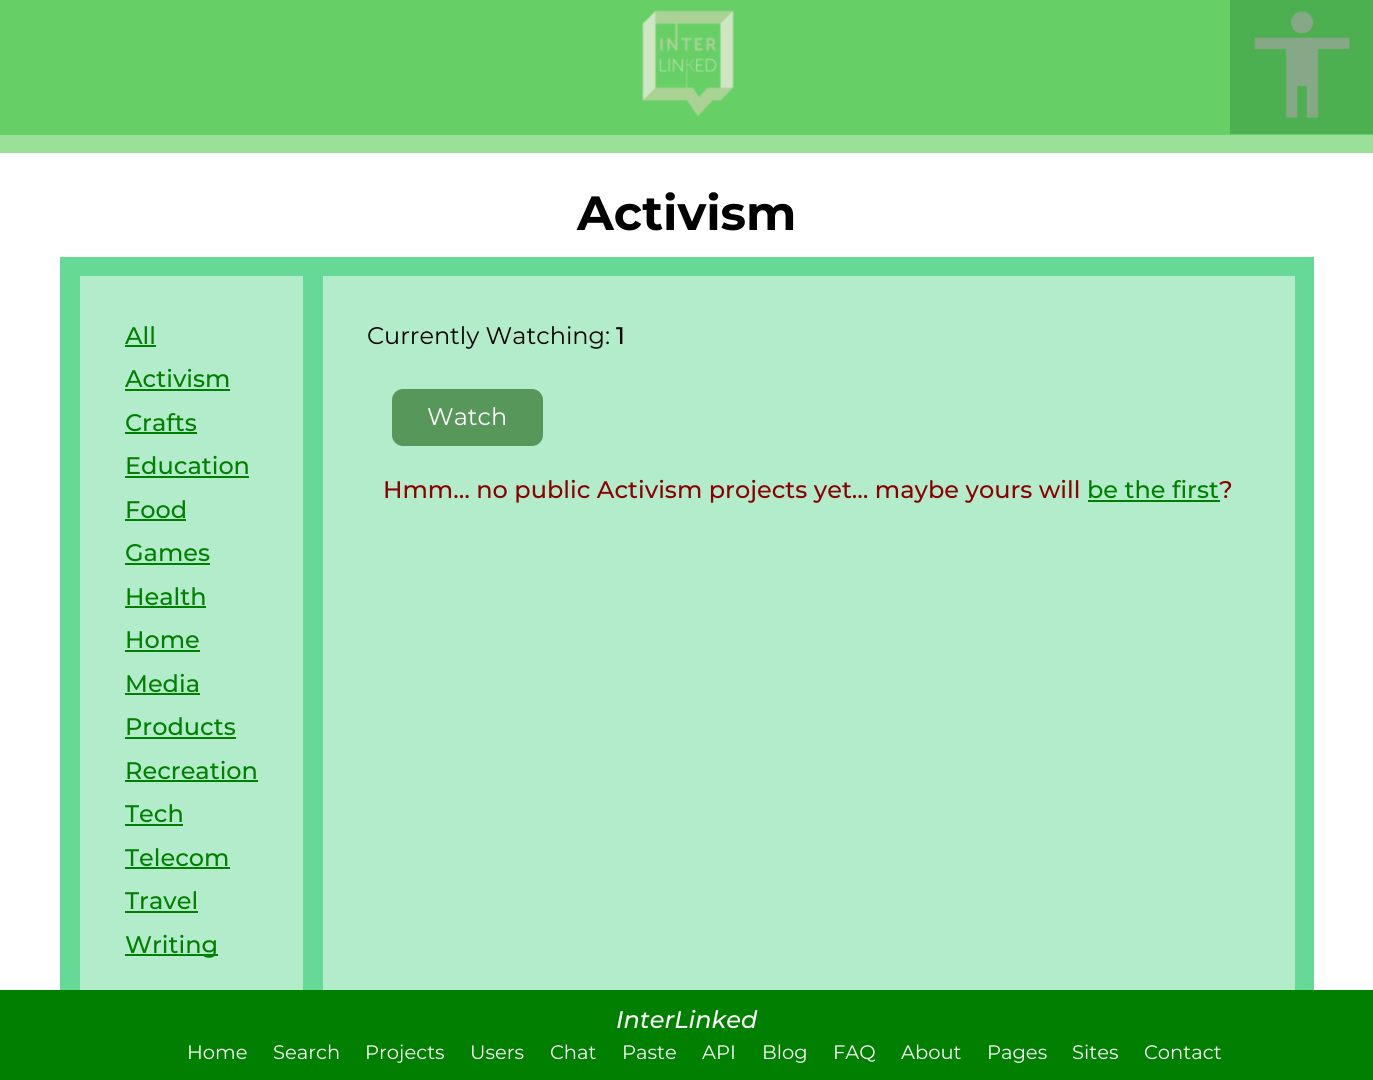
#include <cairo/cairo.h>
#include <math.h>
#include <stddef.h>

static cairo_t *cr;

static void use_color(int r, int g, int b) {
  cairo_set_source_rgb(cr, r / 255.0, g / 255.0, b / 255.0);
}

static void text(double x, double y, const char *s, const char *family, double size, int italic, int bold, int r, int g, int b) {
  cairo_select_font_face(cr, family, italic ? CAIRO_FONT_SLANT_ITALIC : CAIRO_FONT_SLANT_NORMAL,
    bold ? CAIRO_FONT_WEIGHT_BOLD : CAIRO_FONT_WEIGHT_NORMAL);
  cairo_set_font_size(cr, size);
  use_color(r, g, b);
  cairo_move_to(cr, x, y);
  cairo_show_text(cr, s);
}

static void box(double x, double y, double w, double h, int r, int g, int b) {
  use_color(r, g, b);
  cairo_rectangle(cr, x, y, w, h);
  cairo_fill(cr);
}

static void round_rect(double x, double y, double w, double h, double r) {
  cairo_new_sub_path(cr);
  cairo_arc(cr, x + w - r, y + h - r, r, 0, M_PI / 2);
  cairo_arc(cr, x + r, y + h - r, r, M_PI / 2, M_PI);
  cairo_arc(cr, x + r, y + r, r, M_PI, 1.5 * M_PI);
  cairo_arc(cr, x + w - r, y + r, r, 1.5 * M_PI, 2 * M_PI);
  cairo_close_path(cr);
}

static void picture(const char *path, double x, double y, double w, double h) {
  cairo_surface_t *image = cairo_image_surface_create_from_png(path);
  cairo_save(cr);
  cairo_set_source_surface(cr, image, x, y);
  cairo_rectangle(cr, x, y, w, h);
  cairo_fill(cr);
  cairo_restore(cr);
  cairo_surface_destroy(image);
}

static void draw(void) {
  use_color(255, 255, 255);
  cairo_paint(cr);
  box(0, 0, 1373, 135, 102, 208, 102);
  picture("img_01.png", 642, 10, 92, 107);
  box(1230, 0, 143, 134, 76, 175, 80);
  picture("img_02.png", 1254, 11, 96, 107);
  box(0, 135, 1373, 18, 153, 224, 153);
  box(60, 257, 1254, 733, 103, 217, 150);
  box(80, 276, 223, 714, 179, 236, 202);
  box(125, 345, 31, 2, 0, 127, 0);
  box(125, 389, 105, 2, 0, 127, 0);
  box(125, 432, 72, 2, 0, 127, 0);
  box(125, 476, 124, 2, 0, 127, 0);
  box(125, 519, 61, 2, 0, 127, 0);
  box(125, 563, 85, 2, 0, 127, 0);
  box(125, 606, 81, 2, 0, 127, 0);
  box(125, 650, 75, 2, 0, 127, 0);
  box(125, 693, 75, 2, 0, 127, 0);
  box(125, 737, 111, 2, 0, 127, 0);
  box(125, 780, 133, 2, 0, 127, 0);
  box(125, 824, 58, 2, 0, 127, 0);
  box(125, 867, 105, 2, 0, 127, 0);
  box(125, 911, 73, 2, 0, 127, 0);
  box(125, 954, 93, 2, 0, 127, 0);
  box(323, 276, 972, 714, 179, 236, 202);
  use_color(87, 151, 90);
  round_rect(392, 389, 151, 57, 11);
  cairo_fill(cr);
  box(1088, 500, 132, 2, 0, 127, 0);
  box(0, 990, 1373, 90, 0, 127, 0);
  text(577, 230, "Activism", "Montserrat", 48, 0, 1, 0, 0, 0);
  text(125, 344, "All", "Montserrat Medium", 24, 0, 0, 0, 127, 0);
  text(125, 387, "Activism", "Montserrat Medium", 24, 0, 0, 0, 127, 0);
  text(125, 431, "Crafts", "Montserrat Medium", 24, 0, 0, 0, 127, 0);
  text(125, 474, "Education", "Montserrat Medium", 24, 0, 0, 0, 127, 0);
  text(125, 518, "Food", "Montserrat Medium", 24, 0, 0, 0, 127, 0);
  text(125, 561, "Games", "Montserrat Medium", 24, 0, 0, 0, 127, 0);
  text(125, 605, "Health", "Montserrat Medium", 24, 0, 0, 0, 127, 0);
  text(125, 648, "Home", "Montserrat Medium", 24, 0, 0, 0, 127, 0);
  text(125, 692, "Media", "Montserrat Medium", 24, 0, 0, 0, 127, 0);
  text(125, 735, "Products", "Montserrat Medium", 24, 0, 0, 0, 127, 0);
  text(125, 779, "Recreation", "Montserrat Medium", 24, 0, 0, 0, 127, 0);
  text(125, 822, "Tech", "Montserrat Medium", 24, 0, 0, 0, 127, 0);
  text(125, 866, "Telecom", "Montserrat Medium", 24, 0, 0, 0, 127, 0);
  text(125, 909, "Travel", "Montserrat Medium", 24, 0, 0, 0, 127, 0);
  text(125, 953, "Writing", "Montserrat Medium", 24, 0, 0, 0, 127, 0);
  text(367, 344, "Currently Watching:", "Montserrat", 24, 0, 0, 0, 0, 0);
  text(616, 344, "1", "Montserrat Medium", 24, 0, 0, 0, 0, 0);
  text(427, 425, "Watch", "Montserrat", 24, 0, 0, 255, 255, 255);
  text(383, 498, "Hmm… no public Activism projects yet… maybe yours will", "Montserrat Medium", 24, 0, 0, 139, 0, 0);
  text(1087, 498, "be the first", "Montserrat Medium", 24, 0, 0, 0, 127, 0);
  text(1219, 498, "?", "Montserrat Medium", 24, 0, 0, 139, 0, 0);
  text(616, 1028, "InterLinked", "Montserrat Medium", 24, 1, 0, 255, 255, 255);
  text(187, 1059, "Home", "Montserrat", 19.5, 0, 0, 255, 255, 255);
  text(273, 1059, "Search", "Montserrat", 19.5, 0, 0, 255, 255, 255);
  text(365, 1059, "Projects", "Montserrat", 19.5, 0, 0, 255, 255, 255);
  text(470, 1059, "Users", "Montserrat", 19.5, 0, 0, 255, 255, 255);
  text(550, 1059, "Chat", "Montserrat", 19.5, 0, 0, 255, 255, 255);
  text(622, 1059, "Paste", "Montserrat", 19.5, 0, 0, 255, 255, 255);
  text(702, 1059, "API", "Montserrat", 19.5, 0, 0, 255, 255, 255);
  text(762, 1059, "Blog", "Montserrat", 19.5, 0, 0, 255, 255, 255);
  text(833, 1059, "FAQ", "Montserrat", 19.5, 0, 0, 255, 255, 255);
  text(901, 1059, "About", "Montserrat", 19.5, 0, 0, 255, 255, 255);
  text(987, 1059, "Pages", "Montserrat", 19.5, 0, 0, 255, 255, 255);
  text(1072, 1059, "Sites", "Montserrat", 19.5, 0, 0, 255, 255, 255);
  text(1144, 1059, "Contact", "Montserrat", 19.5, 0, 0, 255, 255, 255);
}

int main(void) {
  cairo_surface_t *surface = cairo_image_surface_create(CAIRO_FORMAT_RGB24, 1373, 1080);
  cr = cairo_create(surface);
  cairo_font_options_t *options = cairo_font_options_create();
  cairo_font_options_set_hint_metrics(options, CAIRO_HINT_METRICS_OFF);
  cairo_font_options_set_hint_style(options, CAIRO_HINT_STYLE_NONE);
  cairo_set_font_options(cr, options);
  cairo_set_miter_limit(cr, 4);
  draw();
  cairo_surface_write_to_png(surface, "out.png");
  cairo_font_options_destroy(options);
  cairo_destroy(cr);
  cairo_surface_destroy(surface);
  return 0;
}
